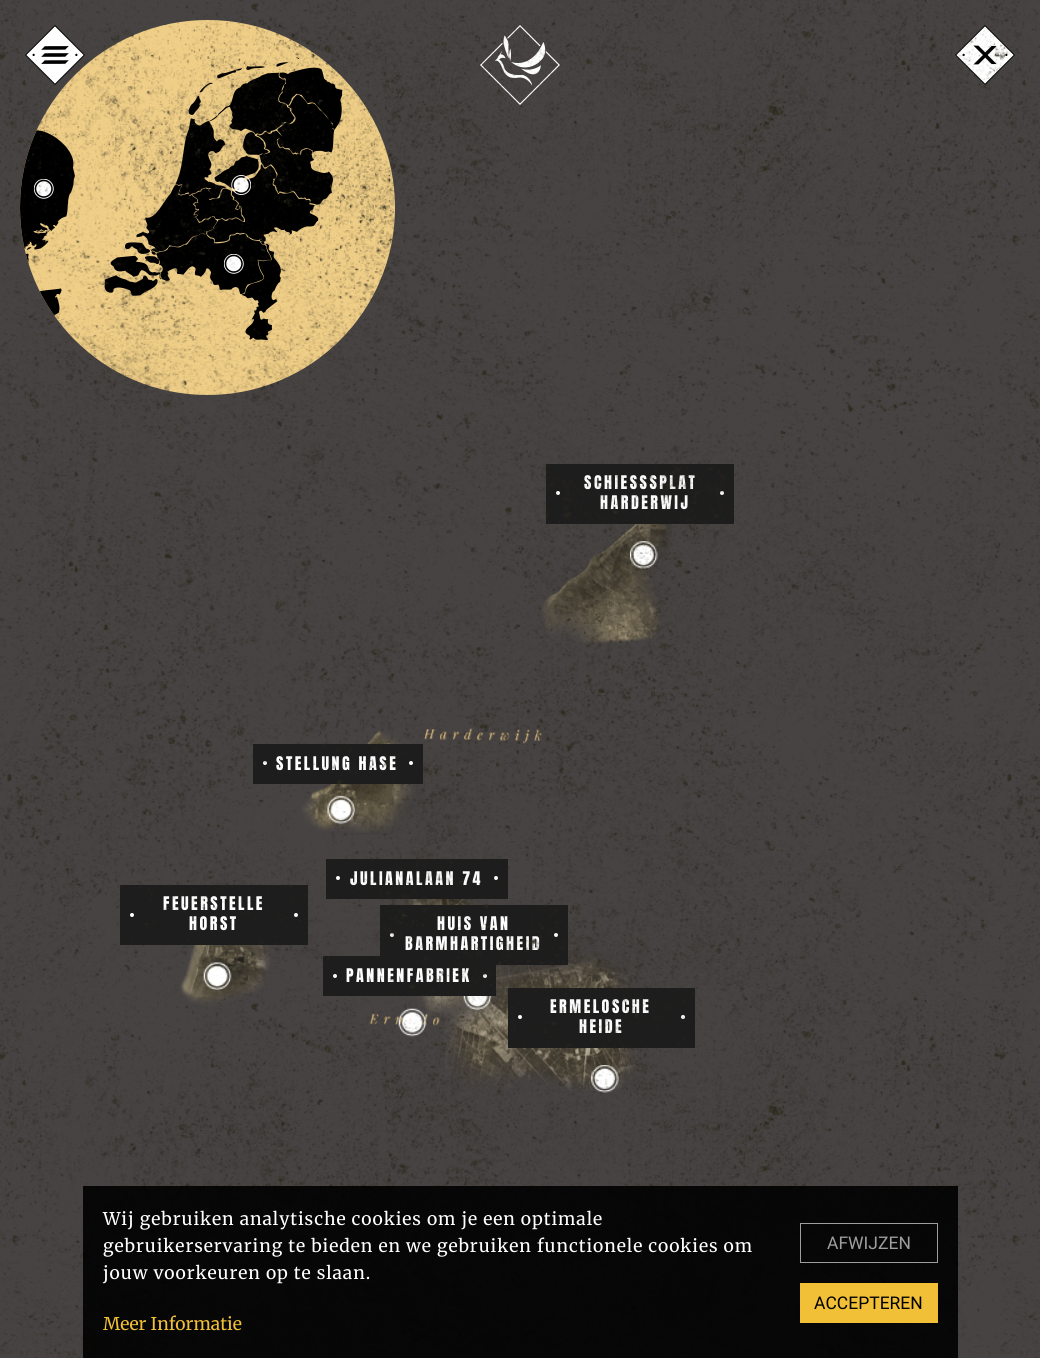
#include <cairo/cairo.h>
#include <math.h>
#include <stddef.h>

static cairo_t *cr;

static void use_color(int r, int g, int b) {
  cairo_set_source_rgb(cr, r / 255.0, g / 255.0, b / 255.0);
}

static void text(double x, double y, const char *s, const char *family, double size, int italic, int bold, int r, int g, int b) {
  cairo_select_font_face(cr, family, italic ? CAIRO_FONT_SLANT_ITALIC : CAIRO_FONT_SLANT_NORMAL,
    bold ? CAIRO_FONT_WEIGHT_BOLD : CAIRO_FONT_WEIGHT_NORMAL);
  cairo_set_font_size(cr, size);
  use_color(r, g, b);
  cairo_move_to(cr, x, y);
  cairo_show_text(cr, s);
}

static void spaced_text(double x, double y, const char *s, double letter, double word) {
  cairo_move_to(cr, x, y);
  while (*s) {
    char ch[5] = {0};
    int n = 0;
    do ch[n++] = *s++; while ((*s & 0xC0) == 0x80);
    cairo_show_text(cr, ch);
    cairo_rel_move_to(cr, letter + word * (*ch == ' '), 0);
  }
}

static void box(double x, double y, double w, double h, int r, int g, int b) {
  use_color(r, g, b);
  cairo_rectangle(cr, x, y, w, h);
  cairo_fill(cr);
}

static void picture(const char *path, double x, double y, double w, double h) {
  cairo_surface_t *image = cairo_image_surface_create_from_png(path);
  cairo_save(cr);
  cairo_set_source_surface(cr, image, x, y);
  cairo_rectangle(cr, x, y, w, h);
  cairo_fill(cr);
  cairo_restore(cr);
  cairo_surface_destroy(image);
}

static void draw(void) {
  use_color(71, 67, 67);
  cairo_paint(cr);
  picture("img_02.png", 0, 0, 1040, 1358);
  use_color(239, 206, 135);
  cairo_arc(cr, 207.5, 207.5, 187.5, 0, 2 * M_PI);
  cairo_fill(cr);
  picture("img_03.png", 20, 21, 375, 374);
  picture("img_04.png", 20, 57, 323, 284);
  picture("img_05.png", 34, 179, 20, 20);
  picture("img_06.png", 231, 175, 20, 20);
  picture("img_05.png", 224, 254, 20, 20);
  picture("img_07.png", 480, 25, 80, 80);
  picture("img_08.png", 955, 25, 60, 60);
  box(546, 464, 188, 60, 29, 29, 29);
  use_color(255, 255, 255);
  cairo_arc(cr, 558, 493, 2, 0, 2 * M_PI);
  cairo_fill(cr);
  cairo_arc(cr, 722, 493, 2, 0, 2 * M_PI);
  cairo_fill(cr);
  picture("img_17.png", 441, 537, 230, 207);
  picture("img_10.png", 630, 541, 28, 28);
  picture("img_18.png", 301, 729, 141, 106);
  box(253, 744, 170, 40, 29, 29, 29);
  use_color(255, 255, 255);
  cairo_arc(cr, 265, 763, 2, 0, 2 * M_PI);
  cairo_fill(cr);
  cairo_arc(cr, 411, 763, 2, 0, 2 * M_PI);
  cairo_fill(cr);
  picture("img_11.png", 327, 796, 28, 28);
  box(326, 859, 182, 40, 29, 29, 29);
  use_color(255, 255, 255);
  cairo_arc(cr, 338, 878, 2, 0, 2 * M_PI);
  cairo_fill(cr);
  cairo_arc(cr, 496, 878, 2, 0, 2 * M_PI);
  cairo_fill(cr);
  picture("img_20.png", 441, 899, 196, 193);
  picture("img_19.png", 180, 899, 262, 127);
  box(120, 885, 188, 60, 29, 29, 29);
  use_color(255, 255, 255);
  cairo_arc(cr, 132, 915, 2, 0, 2 * M_PI);
  cairo_fill(cr);
  cairo_arc(cr, 296, 915, 2, 0, 2 * M_PI);
  cairo_fill(cr);
  box(380, 905, 188, 60, 29, 29, 29);
  use_color(255, 255, 255);
  cairo_arc(cr, 392, 935, 2, 0, 2 * M_PI);
  cairo_fill(cr);
  cairo_arc(cr, 556, 935, 2, 0, 2 * M_PI);
  cairo_fill(cr);
  picture("img_12.png", 203, 962, 29, 28);
  box(323, 956, 173, 40, 29, 29, 29);
  use_color(255, 255, 255);
  cairo_arc(cr, 335, 976, 2, 0, 2 * M_PI);
  cairo_fill(cr);
  cairo_arc(cr, 485, 976, 2, 0, 2 * M_PI);
  cairo_fill(cr);
  picture("img_13.png", 398, 1008, 29, 29);
  picture("img_14.png", 463, 996, 29, 14);
  box(508, 988, 187, 60, 29, 29, 29);
  use_color(255, 255, 255);
  cairo_arc(cr, 520, 1017, 2, 0, 2 * M_PI);
  cairo_fill(cr);
  cairo_arc(cr, 683, 1017, 2, 0, 2 * M_PI);
  cairo_fill(cr);
  picture("img_15.png", 591, 1065, 28, 28);
  picture("img_16.png", 620, 524, 52, 14);
  cairo_select_font_face(cr, "Anton", CAIRO_FONT_SLANT_NORMAL, CAIRO_FONT_WEIGHT_NORMAL);
  cairo_set_font_size(cr, 16);
  spaced_text(584, 489, "SCHIESSSPLAT", 2.5, 0);
  spaced_text(600, 509, "HARDERWIJ", 2.5, 0);
  spaced_text(276, 770, "STELLUNG HASE", 2.5, 0);
  spaced_text(350, 885, "JULIANALAAN 74", 2.5, 0);
  spaced_text(163, 910, "FEUERSTELLE", 2.5, 0);
  spaced_text(189, 930, "HORST", 2.5, 0);
  spaced_text(437, 930, "HUIS VAN", 2.5, 0);
  spaced_text(405, 950, "BARMHARTIGHEID", 2.5, 0);
  spaced_text(346, 982, "PANNENFABRIEK", 2.5, 0);
  spaced_text(550, 1013, "ERMELOSCHE", 2.5, 0);
  spaced_text(579, 1033, "HEIDE", 2.5, 0);
  picture("img_09.png", 0, 0, 1040, 1358);
  picture("img_01.png", 25, 25, 60, 60);
  cairo_set_source_rgba(cr, 0, 0, 0, 0.9);
  cairo_rectangle(cr, 83, 1186, 875, 172);
  cairo_fill(cr);
  cairo_select_font_face(cr, "Merriweather Light", CAIRO_FONT_SLANT_NORMAL, CAIRO_FONT_WEIGHT_NORMAL);
  cairo_set_font_size(cr, 17.5);
  use_color(255, 255, 255);
  spaced_text(103, 1225, "Wij gebruiken analytische cookies om je een optimale", 0.93, 0);
  spaced_text(103, 1252, "gebruikerservaring te bieden en we gebruiken functionele cookies om", 0.93, 0);
  spaced_text(103, 1279, "jouw voorkeuren op te slaan.", 0.93, 0);
  text(103, 1330, "Meer Informatie", "Merriweather Light", 17.5, 0, 0, 242, 192, 55);
  cairo_rectangle(cr, 800.5, 1223.5, 137, 39);
  use_color(158, 158, 158);
  cairo_set_line_width(cr, 1);
  cairo_stroke(cr);
  text(827, 1249, "AFWIJZEN", "Roboto", 17.5, 0, 0, 158, 158, 158);
  box(800, 1283, 138, 40, 242, 192, 55);
  text(814, 1309, "ACCEPTEREN", "Roboto", 17.5, 0, 0, 0, 0, 0);
}

int main(void) {
  cairo_surface_t *surface = cairo_image_surface_create(CAIRO_FORMAT_RGB24, 1040, 1358);
  cr = cairo_create(surface);
  cairo_font_options_t *options = cairo_font_options_create();
  cairo_font_options_set_hint_metrics(options, CAIRO_HINT_METRICS_OFF);
  cairo_font_options_set_hint_style(options, CAIRO_HINT_STYLE_NONE);
  cairo_set_font_options(cr, options);
  cairo_set_miter_limit(cr, 4);
  draw();
  cairo_surface_write_to_png(surface, "out.png");
  cairo_font_options_destroy(options);
  cairo_destroy(cr);
  cairo_surface_destroy(surface);
  return 0;
}
